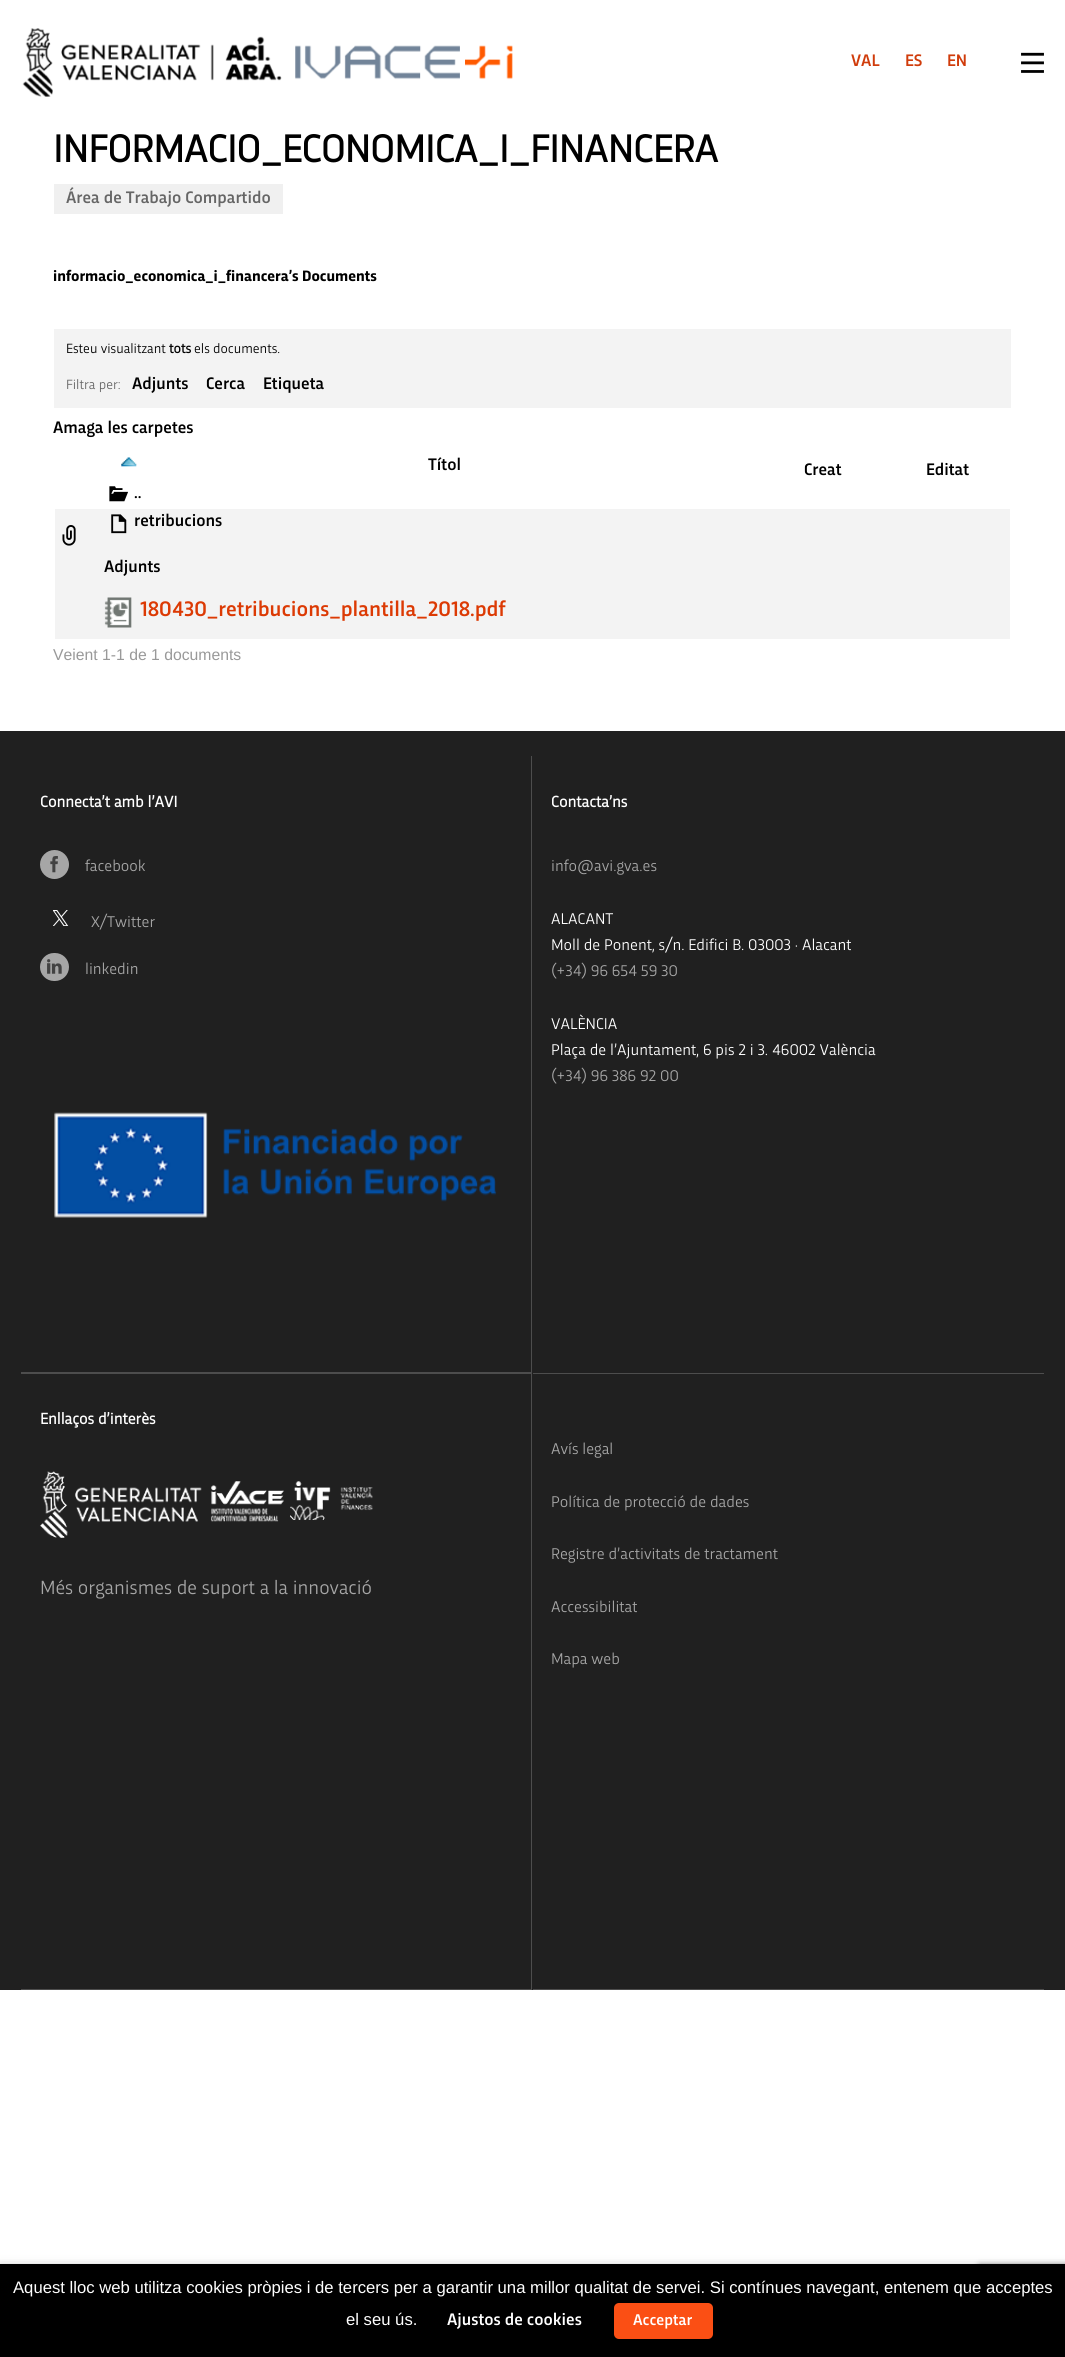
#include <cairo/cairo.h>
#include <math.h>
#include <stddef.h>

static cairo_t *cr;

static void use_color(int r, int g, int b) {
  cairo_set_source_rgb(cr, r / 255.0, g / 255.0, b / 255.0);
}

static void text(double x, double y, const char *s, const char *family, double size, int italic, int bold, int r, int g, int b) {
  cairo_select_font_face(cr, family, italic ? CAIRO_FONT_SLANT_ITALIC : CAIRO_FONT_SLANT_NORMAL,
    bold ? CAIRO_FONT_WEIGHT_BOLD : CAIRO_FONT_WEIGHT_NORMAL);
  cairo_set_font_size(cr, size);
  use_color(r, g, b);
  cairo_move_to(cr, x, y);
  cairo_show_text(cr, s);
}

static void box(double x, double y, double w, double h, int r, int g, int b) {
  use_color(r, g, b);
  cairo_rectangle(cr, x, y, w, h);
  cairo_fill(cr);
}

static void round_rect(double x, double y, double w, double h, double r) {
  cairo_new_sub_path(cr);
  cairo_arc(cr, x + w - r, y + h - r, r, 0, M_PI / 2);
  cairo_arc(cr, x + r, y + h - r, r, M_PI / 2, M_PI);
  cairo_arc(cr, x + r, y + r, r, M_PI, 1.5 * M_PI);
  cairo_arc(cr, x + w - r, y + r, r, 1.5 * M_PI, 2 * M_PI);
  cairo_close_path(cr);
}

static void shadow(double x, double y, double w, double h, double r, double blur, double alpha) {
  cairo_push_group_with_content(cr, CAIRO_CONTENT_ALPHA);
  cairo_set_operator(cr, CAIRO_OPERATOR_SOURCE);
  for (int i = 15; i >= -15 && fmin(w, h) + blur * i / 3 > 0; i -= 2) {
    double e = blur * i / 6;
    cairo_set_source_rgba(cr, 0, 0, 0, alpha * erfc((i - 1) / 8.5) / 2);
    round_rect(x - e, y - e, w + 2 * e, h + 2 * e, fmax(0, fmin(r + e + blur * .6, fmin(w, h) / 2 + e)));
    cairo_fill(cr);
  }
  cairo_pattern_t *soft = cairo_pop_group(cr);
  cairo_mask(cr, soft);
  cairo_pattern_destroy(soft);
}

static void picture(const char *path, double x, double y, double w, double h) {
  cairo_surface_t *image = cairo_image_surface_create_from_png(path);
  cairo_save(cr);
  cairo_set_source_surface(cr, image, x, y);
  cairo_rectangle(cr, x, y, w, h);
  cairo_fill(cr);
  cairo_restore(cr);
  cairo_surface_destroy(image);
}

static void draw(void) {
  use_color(255, 255, 255);
  cairo_paint(cr);
  picture("img_01.png", 22, 28, 491, 69);
  picture("img_02.png", 1021, 52, 23, 21);
  box(54, 184, 229, 30, 240, 240, 240);
  box(54, 329, 957, 79, 243, 243, 243);
  picture("img_03.png", 121, 457, 16, 10);
  picture("img_04.png", 109, 486, 19, 16);
  box(55, 509, 955, 130, 243, 243, 243);
  picture("img_05.png", 62, 525, 14, 21);
  picture("img_06.png", 111, 514, 16, 20);
  picture("img_07.png", 104, 597, 28, 31);
  box(0, 731, 1065, 1259, 32, 32, 32);
  use_color(77, 77, 77);
  cairo_new_path(cr);
  cairo_move_to(cr, 532, 756);
  cairo_line_to(cr, 532, 1374);
  cairo_line_to(cr, 531, 1372);
  cairo_line_to(cr, 531, 756);
  cairo_close_path(cr);
  cairo_fill(cr);
  cairo_set_source_rgba(cr, 1, 1, 1, 0.2);
  cairo_new_path(cr);
  cairo_move_to(cr, 532, 1374);
  cairo_line_to(cr, 21, 1374);
  cairo_line_to(cr, 21, 1372);
  cairo_line_to(cr, 531, 1372);
  cairo_close_path(cr);
  cairo_fill(cr);
  use_color(166, 166, 166);
  cairo_arc(cr, 54.5, 864.5, 14.5, 0, 2 * M_PI);
  cairo_fill(cr);
  picture("img_08.png", 50, 856, 8, 17);
  picture("img_09.png", 53, 910, 16, 16);
  round_rect(40, 953, 29, 28, 14);
  cairo_fill(cr);
  picture("img_10.png", 47, 959, 15, 15);
  picture("img_11.png", 54, 1112, 443, 106);
  box(533, 1373, 511, 1, 77, 77, 77);
  cairo_new_path(cr);
  cairo_move_to(cr, 532, 1374);
  cairo_line_to(cr, 532, 1990);
  cairo_line_to(cr, 531, 1989);
  cairo_line_to(cr, 531, 1374);
  cairo_close_path(cr);
  cairo_fill(cr);
  cairo_set_source_rgba(cr, 1, 1, 1, 0.2);
  cairo_new_path(cr);
  cairo_move_to(cr, 532, 1990);
  cairo_line_to(cr, 21, 1990);
  cairo_line_to(cr, 21, 1989);
  cairo_line_to(cr, 531, 1989);
  cairo_close_path(cr);
  cairo_fill(cr);
  picture("img_12.png", 40, 1471, 162, 67);
  picture("img_13.png", 211, 1481, 73, 41);
  picture("img_14.png", 290, 1481, 83, 39);
  box(533, 1989, 511, 1, 77, 77, 77);
  use_color(128, 128, 128);
  shadow(978, 2265, 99, 75, 2.5, 3, 1);
  use_color(0, 0, 0);
  shadow(0, 2270, 1065, 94, 0, 6, 0.5);
  box(0, 2264, 1065, 93, 0, 0, 0);
  use_color(251, 79, 20);
  round_rect(614, 2303, 99, 36, 5);
  cairo_fill(cr);
  text(851, 66, "VAL", "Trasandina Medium", 17.5, 0, 0, 208, 60, 11);
  text(905, 66, "ES", "Trasandina Medium", 17.5, 0, 0, 208, 60, 11);
  text(947, 66, "EN", "Trasandina Medium", 17.5, 0, 0, 208, 60, 11);
  text(53, 162, "INFORMACIO_ECONOMICA_I_FINANCERA", "Trasandina", 40, 0, 1, 0, 0, 0);
  text(66, 203, "Área de Trabajo Compartido", "Trasandina Medium", 17.5, 0, 0, 102, 102, 102);
  text(53, 281, "informacio_economica_i_financera’s Documents", "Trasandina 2", 15.75, 0, 1, 0, 0, 0);
  text(66, 353, "Esteu visualitzant", "Trasandina", 14, 0, 0, 0, 0, 0);
  text(169, 353, "tots", "Trasandina", 14, 0, 1, 0, 0, 0);
  text(194, 353, "els documents.", "Trasandina", 14, 0, 0, 0, 0, 0);
  text(66, 389, "Filtra per:", "Trasandina", 14, 0, 0, 102, 102, 102);
  text(132, 389, "Adjunts", "Trasandina Medium", 17.5, 0, 0, 0, 0, 0);
  text(206, 389, "Cerca", "Trasandina Medium", 17.5, 0, 0, 0, 0, 0);
  text(263, 389, "Etiqueta", "Trasandina Medium", 17.5, 0, 0, 0, 0, 0);
  text(53, 433, "Amaga les carpetes", "Trasandina Medium", 17.5, 0, 0, 0, 0, 0);
  text(428, 470, "Títol", "Trasandina Medium", 17.5, 0, 0, 0, 0, 0);
  text(804, 475, "Creat", "Trasandina Medium", 17.5, 0, 0, 0, 0, 0);
  text(926, 475, "Editat", "Trasandina Medium", 17.5, 0, 0, 0, 0, 0);
  text(134, 498, "..", "Trasandina Medium", 17.5, 0, 0, 0, 0, 0);
  text(134, 526, "retribucions", "Trasandina Medium", 17.5, 0, 0, 0, 0, 0);
  text(104, 572, "Adjunts", "Trasandina Medium", 17.5, 0, 0, 0, 0, 0);
  text(140, 616, "180430_retribucions_plantilla_2018.pdf", "Trasandina Medium", 22, 0, 0, 220, 58, 4);
  text(53, 660, "Veient 1-1 de 1 documents", "Liberation Sans", 15.75, 0, 0, 153, 153, 153);
  text(40, 807, "Connecta’t amb l’AVI", "Trasandina", 16.25, 0, 1, 255, 255, 255);
  text(85, 871, "facebook", "Trasandina", 16.25, 0, 0, 166, 166, 166);
  text(91, 927, "X/Twitter", "Trasandina", 16.25, 0, 0, 166, 166, 166);
  text(85, 974, "linkedin", "Trasandina", 16.25, 0, 0, 166, 166, 166);
  text(551, 807, "Contacta’ns", "Trasandina", 16.25, 0, 1, 255, 255, 255);
  text(551, 871, "info@avi.gva.es", "Trasandina", 16.25, 0, 0, 166, 166, 166);
  text(551, 924, "ALACANT", "Trasandina", 16.25, 0, 0, 255, 255, 255);
  text(551, 950, "Moll de Ponent, s/n. Edifici B. 03003 · Alacant", "Trasandina", 16.25, 0, 0, 255, 255, 255);
  text(551, 976, "(+34) 96 654 59 30", "Trasandina", 16.25, 0, 0, 166, 166, 166);
  text(551, 1029, "VALÈNCIA", "Trasandina", 16.25, 0, 0, 255, 255, 255);
  text(551, 1055, "Plaça de l’Ajuntament, 6 pis 2 i 3. 46002 València", "Trasandina", 16.25, 0, 0, 255, 255, 255);
  text(551, 1081, "(+34) 96 386 92 00", "Trasandina", 16.25, 0, 0, 166, 166, 166);
  text(40, 1424, "Enllaços d’interès", "Trasandina", 16.25, 0, 1, 255, 255, 255);
  text(40, 1594, "Més organismes de suport a la innovació", "Trasandina", 20, 0, 0, 166, 166, 166);
  text(551, 1454, "Avís legal", "Trasandina", 16.25, 0, 0, 166, 166, 166);
  text(551, 1507, "Política de protecció de dades", "Trasandina", 16.25, 0, 0, 166, 166, 166);
  text(551, 1559, "Registre d’activitats de tractament", "Trasandina", 16.25, 0, 0, 166, 166, 166);
  text(551, 1612, "Accessibilitat", "Trasandina", 16.25, 0, 0, 166, 166, 166);
  text(551, 1664, "Mapa web", "Trasandina", 16.25, 0, 0, 166, 166, 166);
  text(13, 2293, "Aquest lloc web utilitza cookies pròpies i de tercers per a garantir una millor qualitat de servei. Si contínues navegant, entenem que acceptes", "Liberation Sans", 16.67, 0, 0, 255, 255, 255);
  text(346, 2325, "el seu ús.", "Liberation Sans", 16.67, 0, 0, 255, 255, 255);
  text(447, 2325, "Ajustos de cookies", "Trasandina Medium", 17.5, 0, 0, 255, 255, 255);
  text(633, 2325, "Acceptar", "Trasandina Medium", 16.25, 0, 0, 255, 255, 255);
}

int main(void) {
  cairo_surface_t *surface = cairo_image_surface_create(CAIRO_FORMAT_RGB24, 1065, 2357);
  cr = cairo_create(surface);
  cairo_font_options_t *options = cairo_font_options_create();
  cairo_font_options_set_hint_metrics(options, CAIRO_HINT_METRICS_OFF);
  cairo_font_options_set_hint_style(options, CAIRO_HINT_STYLE_NONE);
  cairo_set_font_options(cr, options);
  cairo_set_miter_limit(cr, 4);
  draw();
  cairo_surface_write_to_png(surface, "out.png");
  cairo_font_options_destroy(options);
  cairo_destroy(cr);
  cairo_surface_destroy(surface);
  return 0;
}
